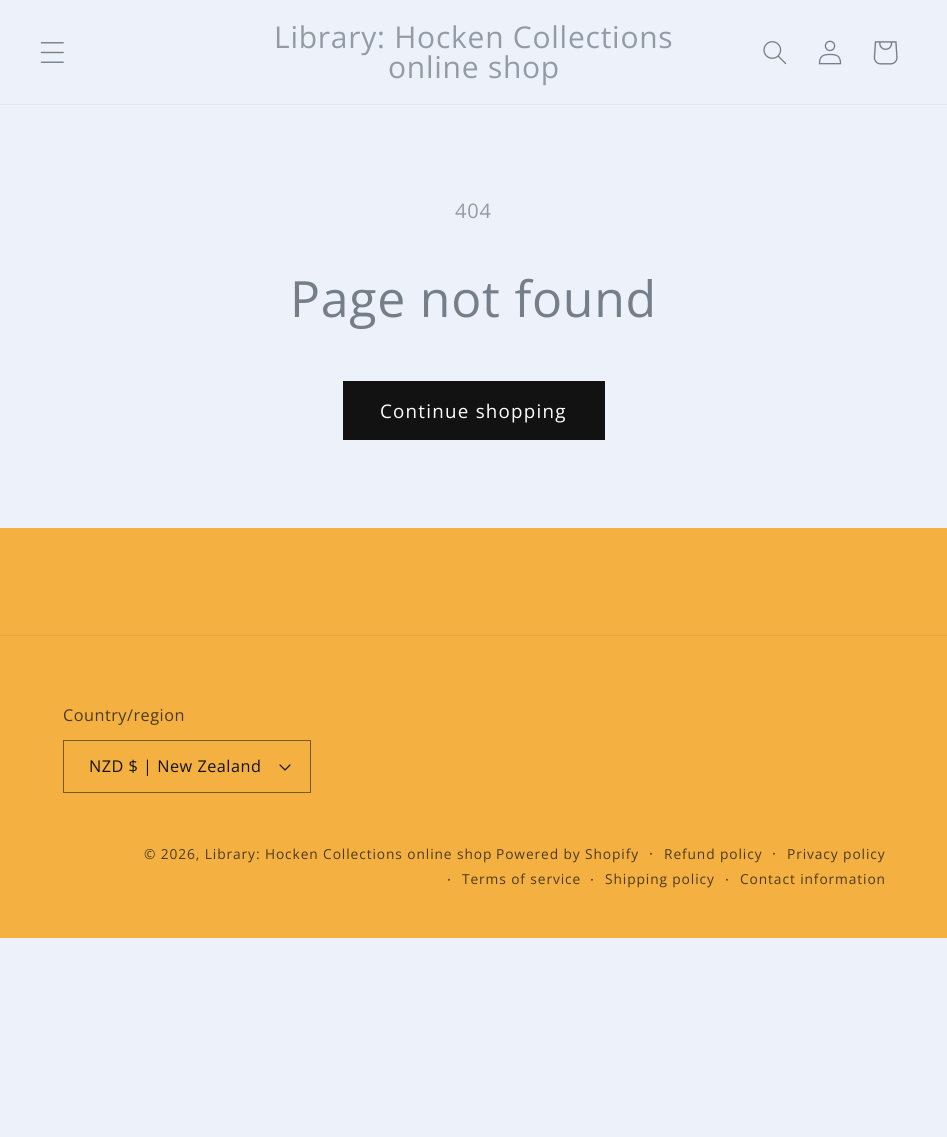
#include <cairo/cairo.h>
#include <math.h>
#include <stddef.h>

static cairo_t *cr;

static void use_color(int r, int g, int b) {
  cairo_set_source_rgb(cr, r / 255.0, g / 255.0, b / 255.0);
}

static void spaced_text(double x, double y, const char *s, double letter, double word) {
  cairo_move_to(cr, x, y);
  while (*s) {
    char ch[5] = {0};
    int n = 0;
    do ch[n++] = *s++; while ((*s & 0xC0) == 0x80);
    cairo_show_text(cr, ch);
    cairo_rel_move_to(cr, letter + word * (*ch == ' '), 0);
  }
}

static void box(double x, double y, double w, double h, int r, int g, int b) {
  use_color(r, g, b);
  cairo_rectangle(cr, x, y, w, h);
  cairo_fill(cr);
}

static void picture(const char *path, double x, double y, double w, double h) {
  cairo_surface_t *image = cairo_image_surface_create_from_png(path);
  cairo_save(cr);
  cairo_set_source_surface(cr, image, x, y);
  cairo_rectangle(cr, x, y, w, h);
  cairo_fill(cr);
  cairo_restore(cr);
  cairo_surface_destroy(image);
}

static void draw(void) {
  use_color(237, 241, 250);
  cairo_paint(cr);
  box(0, 104, 947, 1, 227, 232, 241);
  picture("img_01.png", 40, 42, 24, 21);
  picture("img_02.png", 763, 41, 24, 24);
  picture("img_03.png", 818, 40, 24, 25);
  picture("img_04.png", 873, 41, 25, 24);
  box(343, 381, 262, 59, 18, 18, 18);
  box(0, 528, 947, 410, 244, 177, 66);
  box(0, 635, 947, 1, 226, 164, 62);
  picture("img_05.png", 279, 764, 12, 7);
  cairo_rectangle(cr, 63.5, 740.5, 247, 52);
  use_color(120, 90, 40);
  cairo_set_line_width(cr, 1);
  cairo_stroke(cr);
  cairo_select_font_face(cr, "Open Sans", CAIRO_FONT_SLANT_NORMAL, CAIRO_FONT_WEIGHT_NORMAL);
  cairo_set_font_size(cr, 30);
  use_color(147, 156, 165);
  spaced_text(274, 48, "Library: Hocken Collections", 0.75, 0);
  spaced_text(388, 78, "online shop", 0.75, 0);
  cairo_set_font_size(cr, 20);
  spaced_text(455, 218, "404", 0.75, 0);
  cairo_set_font_size(cr, 50);
  use_color(117, 127, 137);
  spaced_text(290, 317, "Page not found", 0.75, 0);
  cairo_set_font_size(cr, 18.75);
  use_color(255, 255, 255);
  spaced_text(380, 418, "Continue shopping", 1.25, 0);
  cairo_set_font_size(cr, 16.25);
  use_color(75, 58, 30);
  spaced_text(63, 721, "Country/region", 0.5, 0);
  use_color(18, 18, 18);
  spaced_text(89, 772, "NZD $ | New Zealand", 0.5, 0);
  cairo_set_font_size(cr, 13.75);
  use_color(75, 58, 30);
  spaced_text(144, 859, "© 2026, Library: Hocken Collections online shop", 0.9, 0);
  cairo_set_font_size(cr, 15);
  spaced_text(649, 859, "·", 0.9, 0);
  cairo_set_font_size(cr, 13.75);
  spaced_text(664, 859, "Refund policy", 0.9, 0);
  cairo_set_font_size(cr, 15);
  spaced_text(772, 859, "·", 0.9, 0);
  cairo_set_font_size(cr, 13.75);
  spaced_text(787, 859, "Privacy policy", 0.9, 0);
  cairo_set_font_size(cr, 15);
  spaced_text(447, 885, "·", 0.9, 0);
  cairo_set_font_size(cr, 13.75);
  spaced_text(462, 884, "Terms of service", 0.9, 0);
  cairo_set_font_size(cr, 15);
  spaced_text(590, 885, "·", 0.9, 0);
  cairo_set_font_size(cr, 13.75);
  spaced_text(605, 884, "Shipping policy", 0.9, 0);
  cairo_set_font_size(cr, 15);
  spaced_text(725, 885, "·", 0.9, 0);
  cairo_set_font_size(cr, 13.75);
  spaced_text(740, 884, "Contact information", 0.9, 0);
  spaced_text(496, 859, "Powered by Shopify", 0.9, 0);
}

int main(void) {
  cairo_surface_t *surface = cairo_image_surface_create(CAIRO_FORMAT_RGB24, 947, 1137);
  cr = cairo_create(surface);
  cairo_font_options_t *options = cairo_font_options_create();
  cairo_font_options_set_hint_metrics(options, CAIRO_HINT_METRICS_OFF);
  cairo_font_options_set_hint_style(options, CAIRO_HINT_STYLE_NONE);
  cairo_set_font_options(cr, options);
  cairo_set_miter_limit(cr, 4);
  draw();
  cairo_surface_write_to_png(surface, "out.png");
  cairo_font_options_destroy(options);
  cairo_destroy(cr);
  cairo_surface_destroy(surface);
  return 0;
}
